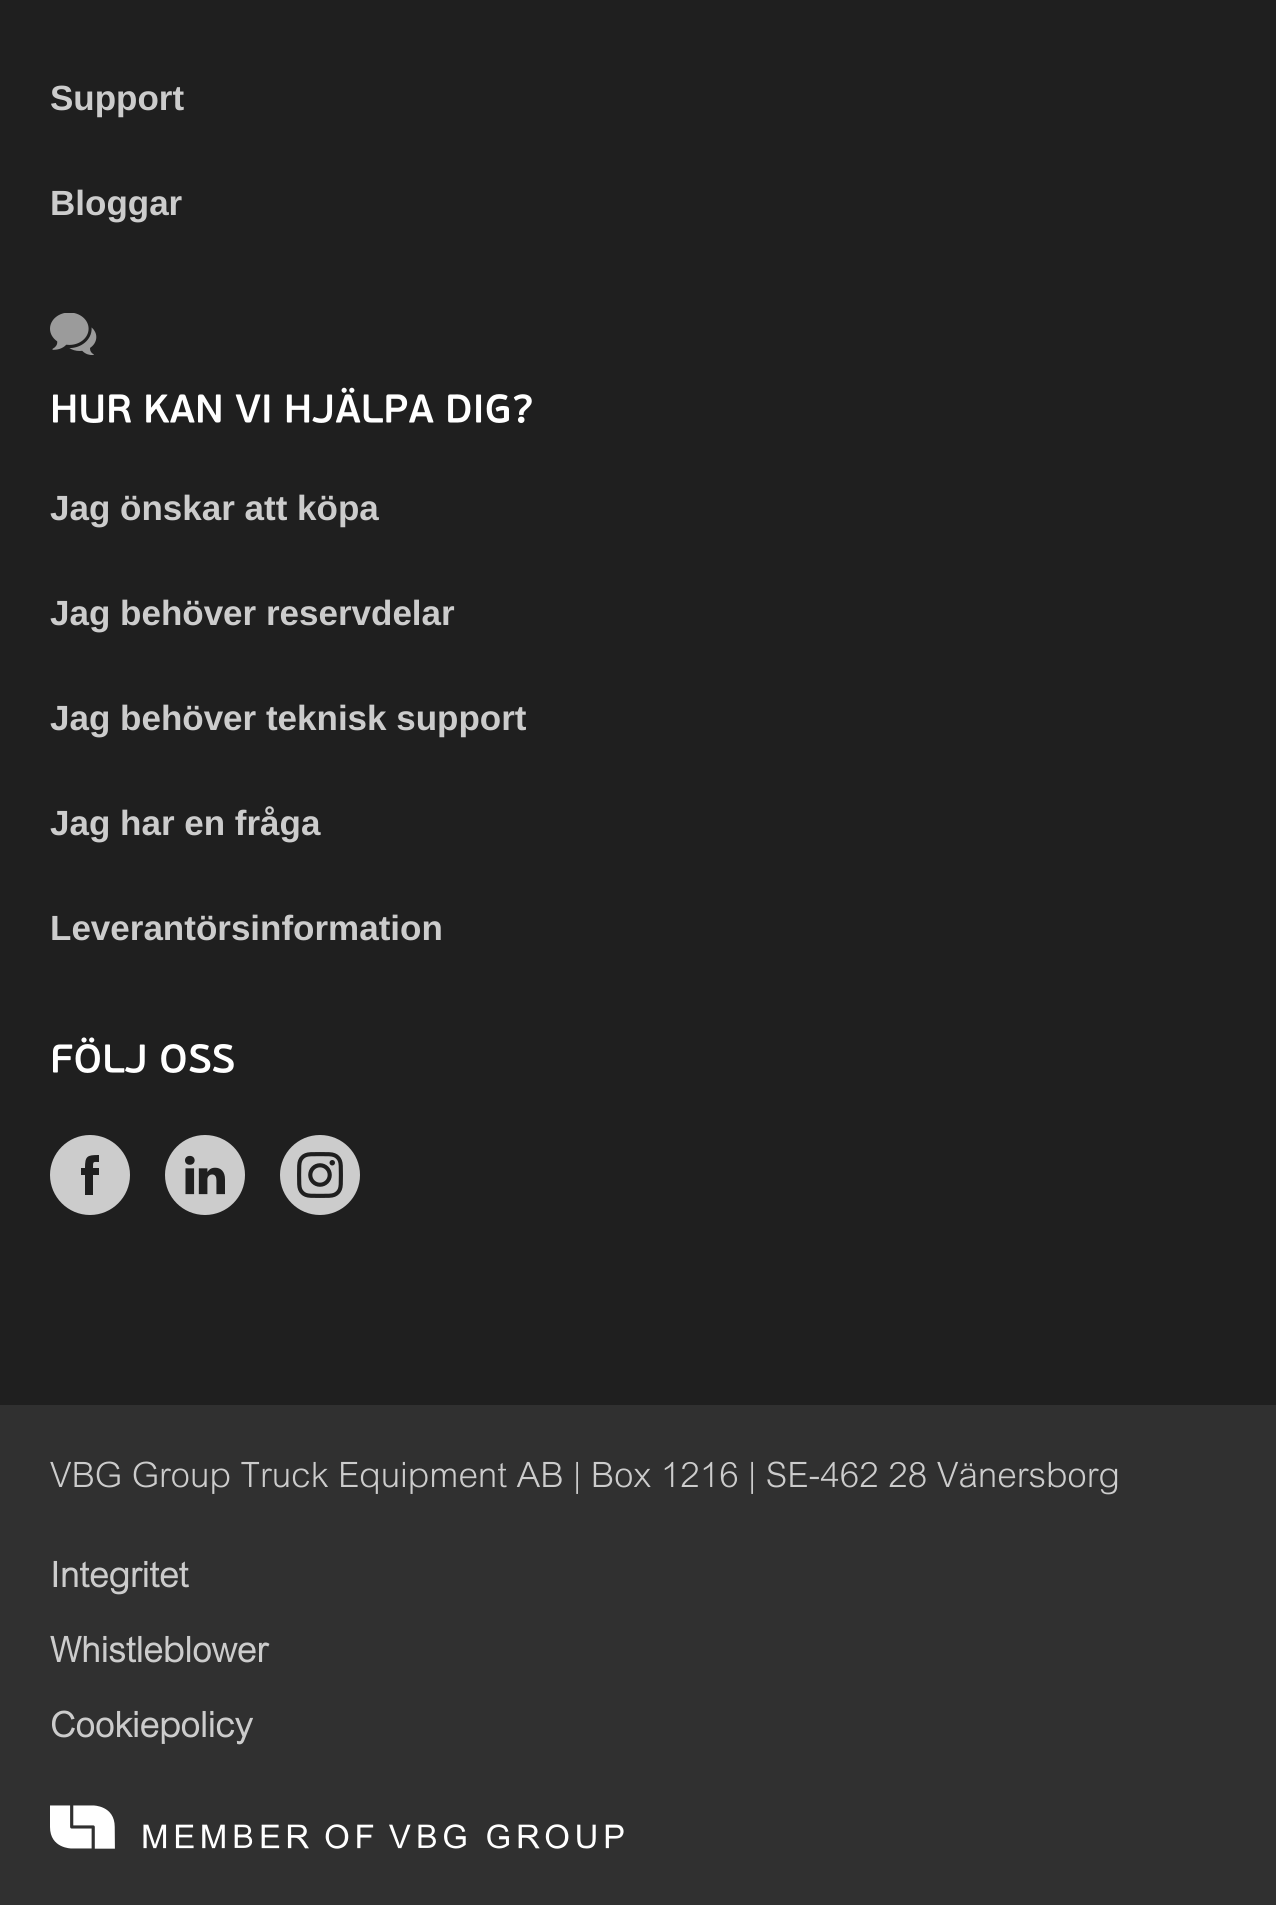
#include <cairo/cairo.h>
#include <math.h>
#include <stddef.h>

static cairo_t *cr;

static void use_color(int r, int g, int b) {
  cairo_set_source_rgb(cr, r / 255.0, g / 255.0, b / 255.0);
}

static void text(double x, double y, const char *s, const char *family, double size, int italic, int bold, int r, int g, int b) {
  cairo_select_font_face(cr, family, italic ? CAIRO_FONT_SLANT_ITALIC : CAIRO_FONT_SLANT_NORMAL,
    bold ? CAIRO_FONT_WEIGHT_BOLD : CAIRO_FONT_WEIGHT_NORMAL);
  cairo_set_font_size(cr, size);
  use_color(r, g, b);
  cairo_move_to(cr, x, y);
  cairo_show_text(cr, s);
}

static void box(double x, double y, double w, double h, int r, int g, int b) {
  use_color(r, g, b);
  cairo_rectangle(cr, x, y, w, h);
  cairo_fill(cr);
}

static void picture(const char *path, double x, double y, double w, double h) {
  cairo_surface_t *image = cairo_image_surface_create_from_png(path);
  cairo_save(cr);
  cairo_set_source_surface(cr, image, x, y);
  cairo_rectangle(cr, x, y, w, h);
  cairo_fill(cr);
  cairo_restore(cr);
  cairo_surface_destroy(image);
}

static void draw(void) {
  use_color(31, 31, 31);
  cairo_paint(cr);
  picture("img_01.png", 50, 313, 47, 42);
  picture("img_02.png", 53, 387, 479, 36);
  picture("img_03.png", 53, 1037, 181, 36);
  use_color(204, 204, 204);
  cairo_set_fill_rule(cr, CAIRO_FILL_RULE_EVEN_ODD);
  cairo_new_path(cr);
  cairo_move_to(cr, 99, 1175);
  cairo_line_to(cr, 93, 1175);
  cairo_line_to(cr, 93, 1195);
  cairo_line_to(cr, 85, 1195);
  cairo_line_to(cr, 85, 1175);
  cairo_line_to(cr, 81, 1175);
  cairo_line_to(cr, 81, 1168);
  cairo_line_to(cr, 85, 1168);
  cairo_curve_to(cr, 85, 1156, 87, 1155, 99, 1155);
  cairo_line_to(cr, 99, 1162);
  cairo_curve_to(cr, 93, 1162, 93, 1161, 93, 1168);
  cairo_line_to(cr, 99, 1168);
  cairo_close_path(cr);
  cairo_move_to(cr, 90, 1135);
  cairo_curve_to(cr, 68, 1135, 50, 1153, 50, 1175);
  cairo_curve_to(cr, 50, 1197, 68, 1215, 90, 1215);
  cairo_curve_to(cr, 112, 1215, 130, 1197, 130, 1175);
  cairo_curve_to(cr, 130, 1153, 112, 1135, 90, 1135);
  cairo_close_path(cr);
  cairo_fill(cr);
  picture("img_04.png", 165, 1135, 80, 80);
  picture("img_05.png", 280, 1135, 80, 80);
  box(0, 1405, 1276, 500, 48, 48, 48);
  picture("img_06.png", 50, 1805, 574, 44);
  text(50, 110, "Support", "Liberation Sans", 35, 0, 1, 204, 204, 204);
  text(50, 215, "Bloggar", "Liberation Sans", 35, 0, 1, 204, 204, 204);
  text(50, 520, "Jag önskar att köpa", "Liberation Sans", 35, 0, 1, 204, 204, 204);
  text(50, 625, "Jag behöver reservdelar", "Liberation Sans", 35, 0, 1, 204, 204, 204);
  text(50, 730, "Jag behöver teknisk support", "Liberation Sans", 35, 0, 1, 204, 204, 204);
  text(50, 835, "Jag har en fråga", "Liberation Sans", 35, 0, 1, 204, 204, 204);
  text(50, 940, "Leverantörsinformation", "Liberation Sans", 35, 0, 1, 204, 204, 204);
  text(50, 1487, "VBG Group Truck Equipment AB | Box 1216 | SE-462 28 Vänersborg", "Arial", 35, 0, 0, 204, 204, 204);
  text(50, 1587, "Integritet", "Arial", 35, 0, 1, 204, 204, 204);
  text(50, 1662, "Whistleblower", "Arial", 35, 0, 1, 204, 204, 204);
  text(50, 1737, "Cookiepolicy", "Arial", 35, 0, 1, 204, 204, 204);
}

int main(void) {
  cairo_surface_t *surface = cairo_image_surface_create(CAIRO_FORMAT_RGB24, 1276, 1905);
  cr = cairo_create(surface);
  cairo_font_options_t *options = cairo_font_options_create();
  cairo_font_options_set_hint_metrics(options, CAIRO_HINT_METRICS_OFF);
  cairo_font_options_set_hint_style(options, CAIRO_HINT_STYLE_NONE);
  cairo_set_font_options(cr, options);
  cairo_set_miter_limit(cr, 4);
  draw();
  cairo_surface_write_to_png(surface, "out.png");
  cairo_font_options_destroy(options);
  cairo_destroy(cr);
  cairo_surface_destroy(surface);
  return 0;
}
